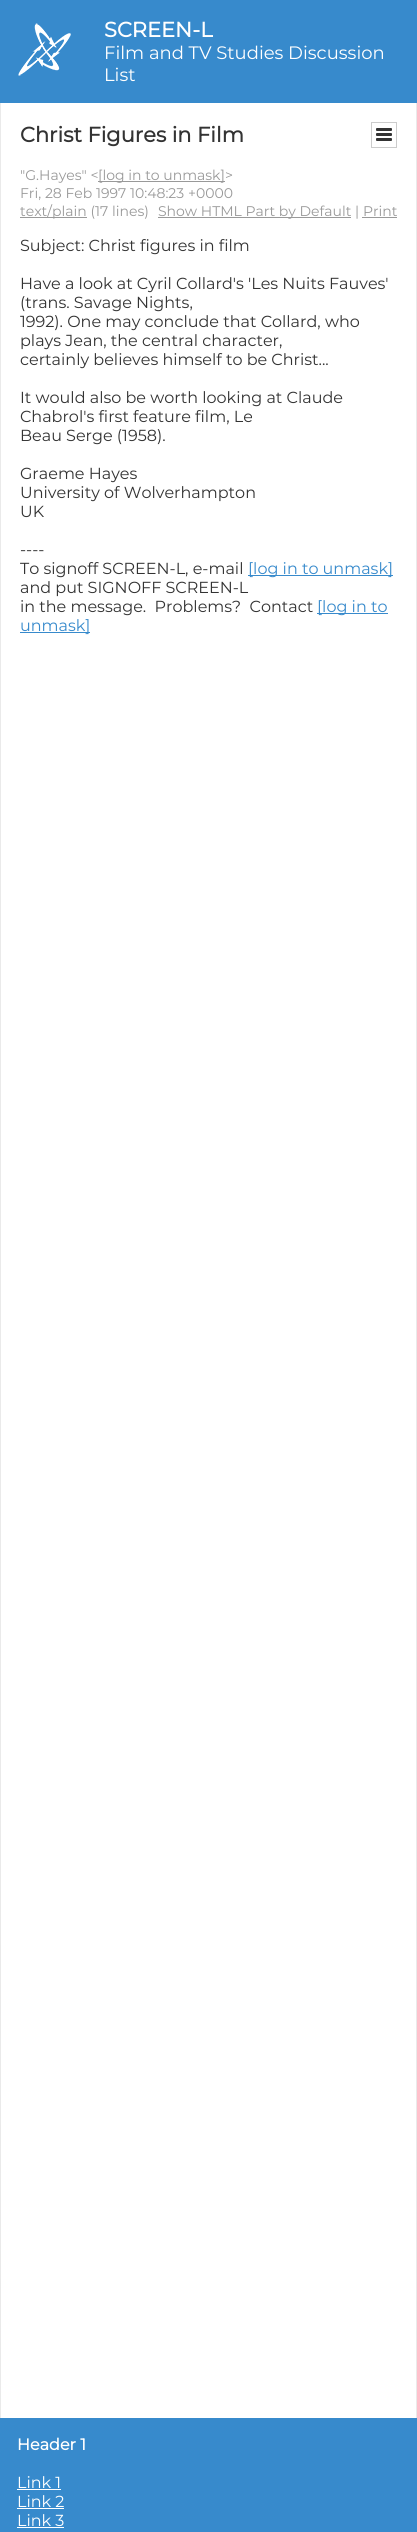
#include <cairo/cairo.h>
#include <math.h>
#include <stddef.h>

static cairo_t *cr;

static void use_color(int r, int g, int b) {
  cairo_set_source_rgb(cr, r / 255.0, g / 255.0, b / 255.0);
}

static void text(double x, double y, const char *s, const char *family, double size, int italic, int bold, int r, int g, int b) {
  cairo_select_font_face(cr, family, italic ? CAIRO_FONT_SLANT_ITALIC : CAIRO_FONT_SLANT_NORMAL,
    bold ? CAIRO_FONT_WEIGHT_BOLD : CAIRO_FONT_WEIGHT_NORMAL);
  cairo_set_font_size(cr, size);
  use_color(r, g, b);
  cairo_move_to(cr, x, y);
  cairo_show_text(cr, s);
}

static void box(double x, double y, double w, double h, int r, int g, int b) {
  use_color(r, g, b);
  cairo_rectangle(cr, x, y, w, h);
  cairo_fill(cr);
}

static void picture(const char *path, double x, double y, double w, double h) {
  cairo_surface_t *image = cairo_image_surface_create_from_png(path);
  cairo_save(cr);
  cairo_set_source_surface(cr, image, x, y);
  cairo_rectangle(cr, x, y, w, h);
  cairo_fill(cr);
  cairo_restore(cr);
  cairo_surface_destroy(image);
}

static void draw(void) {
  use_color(55, 138, 204);
  cairo_paint(cr);
  picture("img_01.png", 18, 23, 53, 53);
  box(1, 103, 415, 2315, 255, 255, 255);
  box(416, 103, 1, 2315, 234, 234, 234);
  box(0, 103, 1, 2315, 234, 234, 234);
  cairo_rectangle(cr, 371.5, 122.5, 25, 25);
  use_color(204, 204, 204);
  cairo_set_line_width(cr, 1);
  cairo_stroke(cr);
  picture("img_02.png", 376, 128, 16, 13);
  box(98, 181, 127, 1, 153, 153, 153);
  box(20, 217, 67, 1, 153, 153, 153);
  box(158, 217, 193, 1, 153, 153, 153);
  box(362, 217, 35, 1, 153, 153, 153);
  box(248, 575, 145, 1, 55, 138, 204);
  box(317, 613, 71, 1, 55, 138, 204);
  box(20, 632, 70, 1, 55, 138, 204);
  box(17, 2489, 44, 1, 255, 255, 255);
  box(17, 2508, 47, 1, 255, 255, 255);
  box(17, 2527, 47, 1, 255, 255, 255);
  text(104, 37, "SCREEN-L", "Montserrat", 21, 0, 1, 255, 255, 255);
  text(104, 59, "Film and TV Studies Discussion", "Montserrat Thin", 18, 0, 0, 255, 255, 255);
  text(104, 81, "List", "Montserrat Thin", 18, 0, 0, 255, 255, 255);
  text(20, 142, "Christ Figures in Film", "Montserrat", 21, 0, 1, 51, 51, 51);
  text(20, 180, "\"G.Hayes\" <", "Montserrat Thin", 14, 0, 0, 153, 153, 153);
  text(98, 180, "[log in to unmask]>", "Montserrat Thin", 14, 0, 0, 153, 153, 153);
  text(20, 198, "Fri, 28 Feb 1997 10:48:23 +0000", "Montserrat Thin", 14, 0, 0, 153, 153, 153);
  text(20, 216, "text/plain (17 lines)", "Montserrat Thin", 14, 0, 0, 153, 153, 153);
  text(158, 216, "Show HTML Part by Default | Print", "Montserrat Thin", 14, 0, 0, 153, 153, 153);
  text(20, 251, "Subject: Christ figures in film", "Montserrat Thin", 16, 0, 0, 51, 51, 51);
  text(20, 289, "Have a look at Cyril Collard's 'Les Nuits Fauves'", "Montserrat Thin", 16, 0, 0, 51, 51, 51);
  text(20, 308, "(trans. Savage Nights,", "Montserrat Thin", 16, 0, 0, 51, 51, 51);
  text(20, 327, "1992). One may conclude that Collard, who", "Montserrat Thin", 16, 0, 0, 51, 51, 51);
  text(20, 346, "plays Jean, the central character,", "Montserrat Thin", 16, 0, 0, 51, 51, 51);
  text(20, 365, "certainly believes himself to be Christ...", "Montserrat Thin", 16, 0, 0, 51, 51, 51);
  text(20, 403, "It would also be worth looking at Claude", "Montserrat Thin", 16, 0, 0, 51, 51, 51);
  text(20, 422, "Chabrol's first feature film, Le", "Montserrat Thin", 16, 0, 0, 51, 51, 51);
  text(20, 441, "Beau Serge (1958).", "Montserrat Thin", 16, 0, 0, 51, 51, 51);
  text(20, 479, "Graeme Hayes", "Montserrat Thin", 16, 0, 0, 51, 51, 51);
  text(20, 498, "University of Wolverhampton", "Montserrat Thin", 16, 0, 0, 51, 51, 51);
  text(20, 517, "UK", "Montserrat Thin", 16, 0, 0, 51, 51, 51);
  text(20, 555, "----", "Montserrat Thin", 16, 0, 0, 51, 51, 51);
  text(20, 574, "To signoff SCREEN-L, e-mail", "Montserrat Thin", 16, 0, 0, 51, 51, 51);
  text(248, 574, "[log in to unmask]", "Montserrat Thin", 16, 0, 0, 55, 138, 204);
  text(20, 593, "and put SIGNOFF SCREEN-L", "Montserrat Thin", 16, 0, 0, 51, 51, 51);
  text(20, 612, "in the message.  Problems?  Contact", "Montserrat Thin", 16, 0, 0, 51, 51, 51);
  text(317, 612, "[log in to", "Montserrat Thin", 16, 0, 0, 55, 138, 204);
  text(20, 631, "unmask]", "Montserrat Thin", 16, 0, 0, 55, 138, 204);
  text(17, 2450, "Header 1", "Montserrat", 16, 0, 1, 255, 255, 255);
  text(17, 2488, "Link 1", "Montserrat Thin", 16, 0, 0, 255, 255, 255);
  text(17, 2507, "Link 2", "Montserrat Thin", 16, 0, 0, 255, 255, 255);
  text(17, 2526, "Link 3", "Montserrat Thin", 16, 0, 0, 255, 255, 255);
}

int main(void) {
  cairo_surface_t *surface = cairo_image_surface_create(CAIRO_FORMAT_RGB24, 417, 2532);
  cr = cairo_create(surface);
  cairo_font_options_t *options = cairo_font_options_create();
  cairo_font_options_set_hint_metrics(options, CAIRO_HINT_METRICS_OFF);
  cairo_font_options_set_hint_style(options, CAIRO_HINT_STYLE_NONE);
  cairo_set_font_options(cr, options);
  cairo_set_miter_limit(cr, 4);
  draw();
  cairo_surface_write_to_png(surface, "out.png");
  cairo_font_options_destroy(options);
  cairo_destroy(cr);
  cairo_surface_destroy(surface);
  return 0;
}
